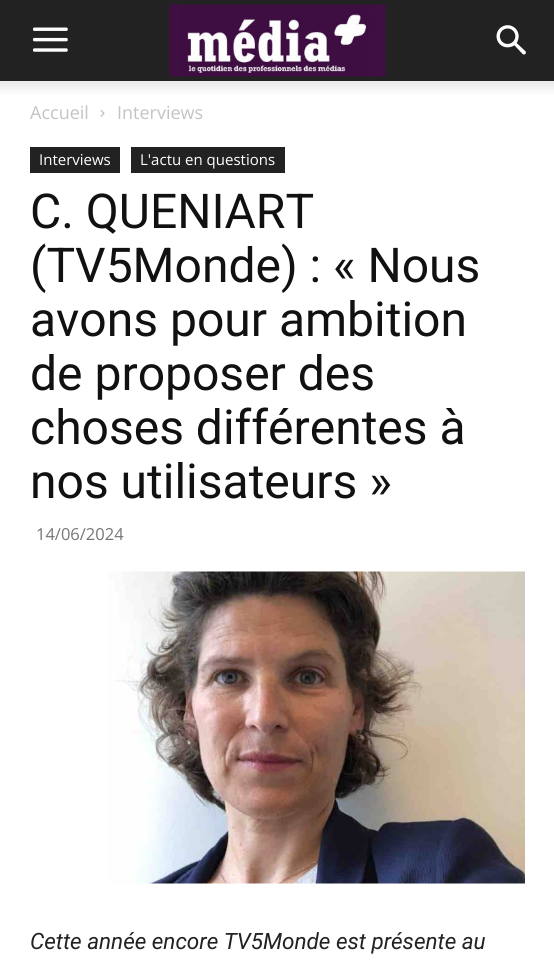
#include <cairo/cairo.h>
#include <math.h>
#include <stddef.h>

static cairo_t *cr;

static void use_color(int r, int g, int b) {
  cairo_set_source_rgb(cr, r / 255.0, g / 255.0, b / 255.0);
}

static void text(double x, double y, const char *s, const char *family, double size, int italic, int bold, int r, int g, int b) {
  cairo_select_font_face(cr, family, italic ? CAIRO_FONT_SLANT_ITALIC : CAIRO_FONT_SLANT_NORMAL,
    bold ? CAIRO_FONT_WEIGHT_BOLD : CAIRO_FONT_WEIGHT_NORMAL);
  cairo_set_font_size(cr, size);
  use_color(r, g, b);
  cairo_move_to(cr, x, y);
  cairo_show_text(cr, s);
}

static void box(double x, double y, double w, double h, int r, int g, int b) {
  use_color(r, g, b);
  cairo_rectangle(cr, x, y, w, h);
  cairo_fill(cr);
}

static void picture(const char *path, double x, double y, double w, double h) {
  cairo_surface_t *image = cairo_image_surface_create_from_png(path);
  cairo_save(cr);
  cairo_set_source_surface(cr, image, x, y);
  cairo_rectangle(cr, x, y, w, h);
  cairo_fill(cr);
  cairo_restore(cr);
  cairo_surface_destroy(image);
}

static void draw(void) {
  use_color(255, 255, 255);
  cairo_paint(cr);
  box(0, 0, 554, 81, 34, 34, 34);
  picture("img_01.png", 33, 27, 35, 25);
  picture("img_02.png", 169, 4, 217, 73);
  picture("img_03.png", 496, 25, 30, 30);
  picture("img_04.png", 0, 81, 554, 13);
  picture("img_05.png", 100, 110, 5, 7);
  box(30, 147, 90, 26, 34, 34, 34);
  box(131, 147, 154, 26, 34, 34, 34);
  picture("img_06.png", 108, 571, 417, 313);
  text(30, 119, "Accueil", "Open Sans", 18, 0, 0, 195, 195, 195);
  text(117, 119, "Interviews", "Open Sans", 18, 0, 0, 195, 195, 195);
  text(39, 165, "Interviews", "Open Sans", 15, 0, 0, 255, 255, 255);
  text(140, 165, "L'actu en questions", "Open Sans", 15, 0, 0, 255, 255, 255);
  text(30, 228, "C. QUENIART", "Roboto", 48, 0, 0, 17, 17, 17);
  text(30, 282, "(TV5Monde) : « Nous", "Roboto", 48, 0, 0, 17, 17, 17);
  text(30, 336, "avons pour ambition", "Roboto", 48, 0, 0, 17, 17, 17);
  text(30, 390, "de proposer des", "Roboto", 48, 0, 0, 17, 17, 17);
  text(30, 444, "choses différentes à", "Roboto", 48, 0, 0, 17, 17, 17);
  text(30, 498, "nos utilisateurs »", "Roboto", 48, 0, 0, 17, 17, 17);
  text(36, 540, "14/06/2024", "Open Sans", 16.5, 0, 0, 118, 118, 118);
  text(30, 949, "Cette année encore TV5Monde est présente au", "Roboto", 22.5, 1, 0, 34, 34, 34);
}

int main(void) {
  cairo_surface_t *surface = cairo_image_surface_create(CAIRO_FORMAT_RGB24, 554, 970);
  cr = cairo_create(surface);
  cairo_font_options_t *options = cairo_font_options_create();
  cairo_font_options_set_hint_metrics(options, CAIRO_HINT_METRICS_OFF);
  cairo_font_options_set_hint_style(options, CAIRO_HINT_STYLE_NONE);
  cairo_set_font_options(cr, options);
  cairo_set_miter_limit(cr, 4);
  draw();
  cairo_surface_write_to_png(surface, "out.png");
  cairo_font_options_destroy(options);
  cairo_destroy(cr);
  cairo_surface_destroy(surface);
  return 0;
}
